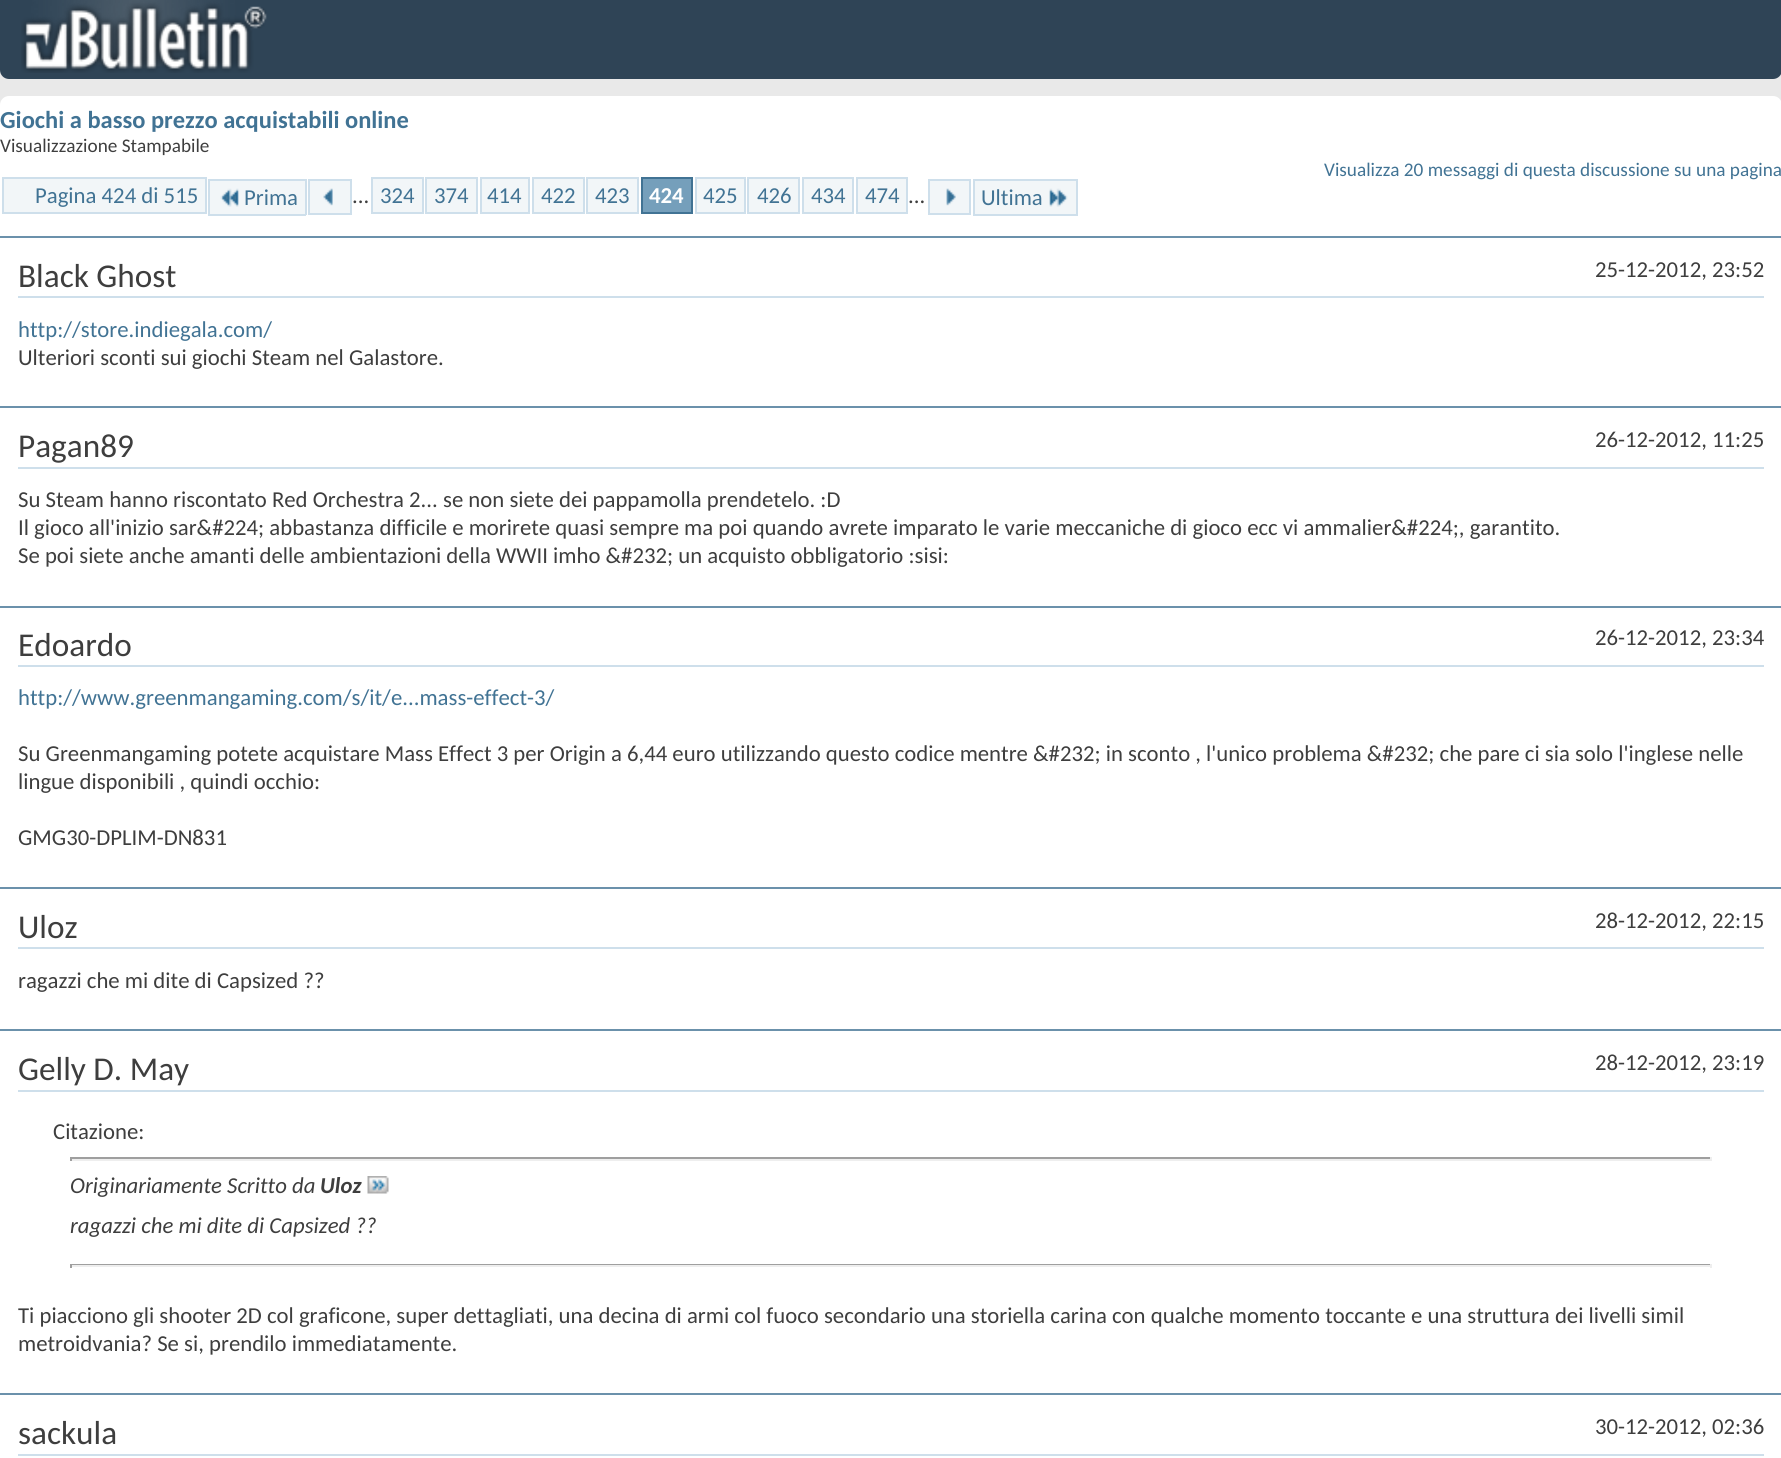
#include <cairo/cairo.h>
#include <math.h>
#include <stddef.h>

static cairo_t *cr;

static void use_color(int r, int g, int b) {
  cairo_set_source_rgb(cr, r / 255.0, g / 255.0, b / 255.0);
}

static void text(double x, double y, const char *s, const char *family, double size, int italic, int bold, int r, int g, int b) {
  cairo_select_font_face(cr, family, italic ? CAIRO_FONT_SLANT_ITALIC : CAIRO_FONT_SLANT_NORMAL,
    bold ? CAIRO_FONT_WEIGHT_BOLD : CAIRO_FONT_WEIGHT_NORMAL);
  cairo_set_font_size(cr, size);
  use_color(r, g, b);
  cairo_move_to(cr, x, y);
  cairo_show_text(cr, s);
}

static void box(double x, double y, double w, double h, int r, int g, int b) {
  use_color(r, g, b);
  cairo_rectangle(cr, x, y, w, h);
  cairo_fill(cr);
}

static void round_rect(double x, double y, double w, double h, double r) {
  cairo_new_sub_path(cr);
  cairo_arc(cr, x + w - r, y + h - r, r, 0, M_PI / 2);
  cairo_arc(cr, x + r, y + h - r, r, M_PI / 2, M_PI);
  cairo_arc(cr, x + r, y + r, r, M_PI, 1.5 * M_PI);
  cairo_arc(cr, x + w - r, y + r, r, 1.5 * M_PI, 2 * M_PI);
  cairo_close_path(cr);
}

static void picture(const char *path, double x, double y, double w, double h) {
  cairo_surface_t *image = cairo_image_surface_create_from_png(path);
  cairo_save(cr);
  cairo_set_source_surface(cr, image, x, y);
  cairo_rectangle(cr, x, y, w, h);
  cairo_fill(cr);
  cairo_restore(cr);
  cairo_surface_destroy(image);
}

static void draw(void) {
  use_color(233, 233, 233);
  cairo_paint(cr);
  use_color(47, 68, 86);
  cairo_new_path(cr);
  cairo_move_to(cr, 0, 0);
  cairo_line_to(cr, 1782, 0);
  cairo_line_to(cr, 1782, 70);
  cairo_curve_to(cr, 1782, 75, 1778, 79, 1773, 79);
  cairo_line_to(cr, 9, 79);
  cairo_curve_to(cr, 4, 79, 0, 75, 0, 70);
  cairo_close_path(cr);
  cairo_fill(cr);
  picture("img_01.png", 21, 0, 246, 73);
  use_color(255, 255, 255);
  round_rect(0, 96, 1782, 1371, 9);
  cairo_fill(cr);
  use_color(242, 246, 248);
  cairo_rectangle(cr, 3, 178, 203, 35);
  cairo_fill_preserve(cr);
  use_color(206, 223, 235);
  cairo_stroke(cr);
  box(210, 181, 95, 33, 242, 246, 248);
  picture("img_02.png", 220, 188, 19, 19);
  box(208, 179, 98, 2, 206, 223, 235);
  box(208, 214, 35, 2, 206, 223, 235);
  box(208, 179, 2, 36, 206, 223, 235);
  box(305, 179, 2, 36, 206, 223, 235);
  box(243, 214, 63, 2, 206, 223, 235);
  use_color(242, 246, 248);
  cairo_rectangle(cr, 309, 180, 42, 34);
  cairo_fill_preserve(cr);
  use_color(206, 223, 235);
  cairo_stroke(cr);
  picture("img_03.png", 323, 188, 10, 18);
  use_color(242, 246, 248);
  cairo_rectangle(cr, 372, 178, 51, 35);
  cairo_fill_preserve(cr);
  use_color(206, 223, 235);
  cairo_stroke(cr);
  use_color(242, 246, 248);
  cairo_rectangle(cr, 426, 178, 51, 35);
  cairo_fill_preserve(cr);
  use_color(206, 223, 235);
  cairo_stroke(cr);
  use_color(242, 246, 248);
  cairo_rectangle(cr, 481, 178, 48, 35);
  cairo_fill_preserve(cr);
  use_color(206, 223, 235);
  cairo_stroke(cr);
  use_color(242, 246, 248);
  cairo_rectangle(cr, 533, 178, 51, 35);
  cairo_fill_preserve(cr);
  use_color(206, 223, 235);
  cairo_stroke(cr);
  use_color(242, 246, 248);
  cairo_rectangle(cr, 587, 178, 51, 35);
  cairo_fill_preserve(cr);
  use_color(206, 223, 235);
  cairo_stroke(cr);
  use_color(117, 159, 187);
  cairo_rectangle(cr, 642, 178, 50, 35);
  cairo_fill_preserve(cr);
  use_color(65, 115, 148);
  cairo_stroke(cr);
  use_color(242, 246, 248);
  cairo_rectangle(cr, 696, 178, 49, 35);
  cairo_fill_preserve(cr);
  use_color(206, 223, 235);
  cairo_stroke(cr);
  use_color(242, 246, 248);
  cairo_rectangle(cr, 748, 178, 51, 35);
  cairo_fill_preserve(cr);
  use_color(206, 223, 235);
  cairo_stroke(cr);
  use_color(242, 246, 248);
  cairo_rectangle(cr, 803, 178, 50, 35);
  cairo_fill_preserve(cr);
  use_color(206, 223, 235);
  cairo_stroke(cr);
  use_color(242, 246, 248);
  cairo_rectangle(cr, 857, 178, 50, 35);
  cairo_fill_preserve(cr);
  use_color(206, 223, 235);
  cairo_stroke(cr);
  use_color(242, 246, 248);
  cairo_rectangle(cr, 929, 180, 41, 34);
  cairo_fill_preserve(cr);
  use_color(206, 223, 235);
  cairo_stroke(cr);
  picture("img_04.png", 946, 188, 10, 18);
  box(975, 181, 101, 33, 242, 246, 248);
  box(973, 179, 105, 2, 206, 223, 235);
  box(973, 214, 70, 2, 206, 223, 235);
  box(973, 179, 2, 36, 206, 223, 235);
  box(1076, 179, 2, 36, 206, 223, 235);
  box(1043, 214, 35, 2, 206, 223, 235);
  picture("img_05.png", 1049, 188, 19, 19);
  box(0, 236, 1781, 2, 107, 145, 171);
  box(18, 296, 1746, 2, 206, 223, 235);
  box(0, 406, 1781, 2, 107, 145, 171);
  box(18, 467, 1746, 2, 206, 223, 235);
  box(0, 606, 1781, 2, 107, 145, 171);
  box(18, 665, 1746, 2, 206, 223, 235);
  box(0, 887, 1781, 2, 107, 145, 171);
  box(18, 947, 1746, 2, 206, 223, 235);
  box(0, 1029, 1781, 2, 107, 145, 171);
  box(18, 1090, 1746, 2, 206, 223, 235);
  box(70, 1157, 1642, 2, 159, 159, 159);
  box(1710, 1157, 2, 4, 238, 238, 238);
  box(70, 1159, 1642, 2, 238, 238, 238);
  box(70, 1157, 2, 4, 159, 159, 159);
  picture("img_06.png", 367, 1176, 22, 18);
  box(70, 1264, 1642, 1, 159, 159, 159);
  box(1710, 1264, 2, 4, 238, 238, 238);
  box(70, 1265, 1642, 2, 238, 238, 238);
  box(70, 1264, 2, 4, 159, 159, 159);
  box(0, 1393, 1781, 2, 107, 145, 171);
  box(18, 1454, 1746, 2, 206, 223, 235);
  text(0, 128, "Giochi a basso prezzo acquistabili online", "Carlito", 24.5, 0, 1, 65, 115, 148);
  text(0, 152, "Visualizzazione Stampabile", "Carlito", 19.25, 0, 0, 62, 62, 62);
  text(1324, 176, "Visualizza 20 messaggi di questa discussione su una pagina", "Carlito", 19.25, 0, 0, 65, 115, 148);
  text(35, 203, "Pagina 424 di 515", "Carlito", 22.75, 0, 0, 65, 115, 148);
  text(244, 205, "Prima", "Carlito", 22.75, 0, 0, 65, 115, 148);
  text(352, 203, "...", "Carlito", 22.75, 0, 0, 62, 62, 62);
  text(380, 203, "324", "Carlito", 22.75, 0, 0, 65, 115, 148);
  text(434, 203, "374", "Carlito", 22.75, 0, 0, 65, 115, 148);
  text(487, 203, "414", "Carlito", 22.75, 0, 0, 65, 115, 148);
  text(541, 203, "422", "Carlito", 22.75, 0, 0, 65, 115, 148);
  text(595, 203, "423", "Carlito", 22.75, 0, 0, 65, 115, 148);
  text(649, 203, "424", "Carlito", 22.75, 0, 1, 255, 255, 255);
  text(703, 203, "425", "Carlito", 22.75, 0, 0, 65, 115, 148);
  text(757, 203, "426", "Carlito", 22.75, 0, 0, 65, 115, 148);
  text(811, 203, "434", "Carlito", 22.75, 0, 0, 65, 115, 148);
  text(865, 203, "474", "Carlito", 22.75, 0, 0, 65, 115, 148);
  text(908, 203, "...", "Carlito", 22.75, 0, 0, 62, 62, 62);
  text(981, 205, "Ultima", "Carlito", 22.75, 0, 0, 65, 115, 148);
  text(18, 287, "Black Ghost", "Carlito", 33.25, 0, 0, 62, 62, 62);
  text(1595, 277, "25-12-2012, 23:52", "Carlito", 22.75, 0, 0, 62, 62, 62);
  text(18, 337, "http://store.indiegala.com/", "Carlito", 22.75, 0, 0, 65, 115, 148);
  text(18, 365, "Ulteriori sconti sui giochi Steam nel Galastore.", "Carlito", 22.75, 0, 0, 62, 62, 62);
  text(18, 457, "Pagan89", "Carlito", 33.25, 0, 0, 62, 62, 62);
  text(1595, 447, "26-12-2012, 11:25", "Carlito", 22.75, 0, 0, 62, 62, 62);
  text(18, 507, "Su Steam hanno riscontato Red Orchestra 2... se non siete dei pappamolla prendetelo. :D", "Carlito", 22.75, 0, 0, 62, 62, 62);
  text(18, 535, "Il gioco all'inizio sar&#224; abbastanza difficile e morirete quasi sempre ma poi quando avrete imparato le varie meccaniche di gioco ecc vi ammalier&#224;, garantito.", "Carlito", 22.75, 0, 0, 62, 62, 62);
  text(18, 563, "Se poi siete anche amanti delle ambientazioni della WWII imho &#232; un acquisto obbligatorio :sisi:", "Carlito", 22.75, 0, 0, 62, 62, 62);
  text(18, 656, "Edoardo", "Carlito", 33.25, 0, 0, 62, 62, 62);
  text(1595, 645, "26-12-2012, 23:34", "Carlito", 22.75, 0, 0, 62, 62, 62);
  text(18, 705, "http://www.greenmangaming.com/s/it/e...mass-effect-3/", "Carlito", 22.75, 0, 0, 65, 115, 148);
  text(18, 761, "Su Greenmangaming potete acquistare Mass Effect 3 per Origin a 6,44 euro utilizzando questo codice mentre &#232; in sconto , l'unico problema &#232; che pare ci sia solo l'inglese nelle", "Carlito", 22.75, 0, 0, 62, 62, 62);
  text(18, 789, "lingue disponibili , quindi occhio:", "Carlito", 22.75, 0, 0, 62, 62, 62);
  text(18, 845, "GMG30-DPLIM-DN831", "Carlito", 22.75, 0, 0, 62, 62, 62);
  text(18, 938, "Uloz", "Carlito", 33.25, 0, 0, 62, 62, 62);
  text(1595, 928, "28-12-2012, 22:15", "Carlito", 22.75, 0, 0, 62, 62, 62);
  text(18, 988, "ragazzi che mi dite di Capsized ?\077", "Carlito", 22.75, 0, 0, 62, 62, 62);
  text(18, 1080, "Gelly D. May", "Carlito", 33.25, 0, 0, 62, 62, 62);
  text(1595, 1070, "28-12-2012, 23:19", "Carlito", 22.75, 0, 0, 62, 62, 62);
  text(53, 1139, "Citazione:", "Carlito", 22.75, 0, 0, 62, 62, 62);
  text(70, 1193, "Originariamente Scritto da", "Carlito", 22.75, 1, 0, 62, 62, 62);
  text(320, 1193, "Uloz", "Carlito", 22.75, 1, 1, 62, 62, 62);
  text(70, 1233, "ragazzi che mi dite di Capsized ?\077", "Carlito", 22.75, 1, 0, 62, 62, 62);
  text(18, 1323, "Ti piacciono gli shooter 2D col graficone, super dettagliati, una decina di armi col fuoco secondario una storiella carina con qualche momento toccante e una struttura dei livelli simil", "Carlito", 22.75, 0, 0, 62, 62, 62);
  text(18, 1351, "metroidvania? Se si, prendilo immediatamente.", "Carlito", 22.75, 0, 0, 62, 62, 62);
  text(18, 1444, "sackula", "Carlito", 33.25, 0, 0, 62, 62, 62);
  text(1595, 1434, "30-12-2012, 02:36", "Carlito", 22.75, 0, 0, 62, 62, 62);
}

int main(void) {
  cairo_surface_t *surface = cairo_image_surface_create(CAIRO_FORMAT_RGB24, 1781, 1458);
  cr = cairo_create(surface);
  cairo_font_options_t *options = cairo_font_options_create();
  cairo_font_options_set_hint_metrics(options, CAIRO_HINT_METRICS_OFF);
  cairo_font_options_set_hint_style(options, CAIRO_HINT_STYLE_NONE);
  cairo_set_font_options(cr, options);
  cairo_set_miter_limit(cr, 4);
  draw();
  cairo_surface_write_to_png(surface, "out.png");
  cairo_font_options_destroy(options);
  cairo_destroy(cr);
  cairo_surface_destroy(surface);
  return 0;
}
